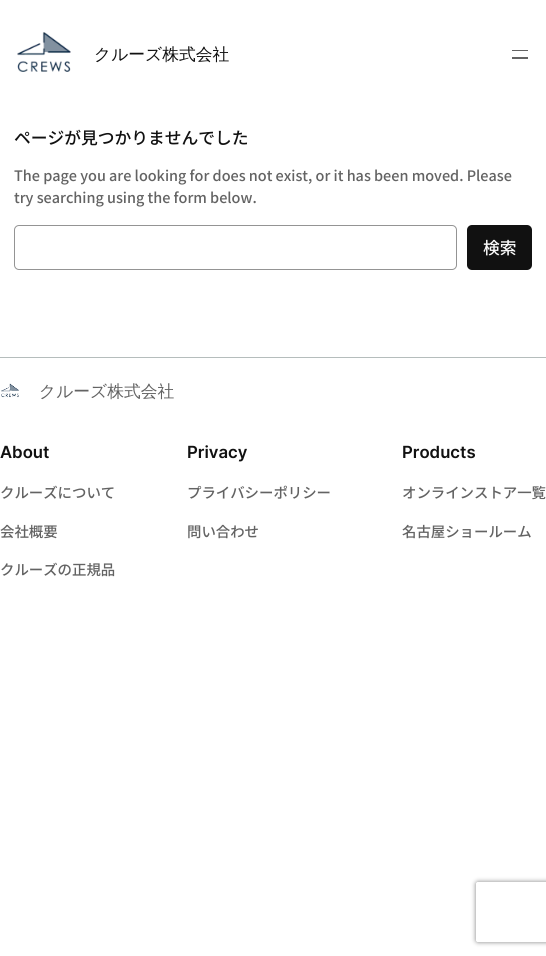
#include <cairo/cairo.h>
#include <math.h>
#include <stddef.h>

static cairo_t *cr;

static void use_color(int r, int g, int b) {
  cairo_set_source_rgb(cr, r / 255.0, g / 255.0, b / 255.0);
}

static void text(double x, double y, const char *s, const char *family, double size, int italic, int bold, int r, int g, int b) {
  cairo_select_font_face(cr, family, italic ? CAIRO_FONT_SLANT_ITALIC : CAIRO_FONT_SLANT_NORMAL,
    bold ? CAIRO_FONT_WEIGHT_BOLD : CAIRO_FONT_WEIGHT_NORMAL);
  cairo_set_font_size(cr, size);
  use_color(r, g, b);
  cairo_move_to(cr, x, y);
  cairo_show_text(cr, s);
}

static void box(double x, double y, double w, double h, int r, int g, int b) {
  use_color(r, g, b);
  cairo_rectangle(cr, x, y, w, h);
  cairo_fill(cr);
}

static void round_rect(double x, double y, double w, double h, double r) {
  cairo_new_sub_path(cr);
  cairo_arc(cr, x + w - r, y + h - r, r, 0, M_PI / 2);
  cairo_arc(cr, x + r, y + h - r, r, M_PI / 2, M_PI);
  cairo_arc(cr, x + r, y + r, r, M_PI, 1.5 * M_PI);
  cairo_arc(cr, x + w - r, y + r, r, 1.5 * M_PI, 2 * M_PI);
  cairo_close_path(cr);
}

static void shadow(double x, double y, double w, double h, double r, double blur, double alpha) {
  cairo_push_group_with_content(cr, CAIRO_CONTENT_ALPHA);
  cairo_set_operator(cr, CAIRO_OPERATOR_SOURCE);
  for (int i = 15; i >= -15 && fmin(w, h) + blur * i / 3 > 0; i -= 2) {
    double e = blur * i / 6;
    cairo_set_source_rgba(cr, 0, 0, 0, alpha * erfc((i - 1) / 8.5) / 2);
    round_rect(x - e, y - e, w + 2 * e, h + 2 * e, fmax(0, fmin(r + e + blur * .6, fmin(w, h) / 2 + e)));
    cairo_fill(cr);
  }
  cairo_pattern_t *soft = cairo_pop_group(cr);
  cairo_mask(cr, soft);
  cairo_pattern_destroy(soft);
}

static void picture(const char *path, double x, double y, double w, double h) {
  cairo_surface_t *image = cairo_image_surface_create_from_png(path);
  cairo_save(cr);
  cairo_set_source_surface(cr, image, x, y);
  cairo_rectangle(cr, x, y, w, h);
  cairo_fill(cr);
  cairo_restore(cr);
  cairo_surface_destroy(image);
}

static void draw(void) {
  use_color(255, 255, 255);
  cairo_paint(cr);
  picture("img_01.png", 17, 32, 54, 40);
  box(512, 50, 16, 1, 99, 99, 99);
  box(512, 57, 16, 2, 99, 99, 99);
  round_rect(14.5, 225.5, 442, 44, 4.5);
  use_color(148, 148, 148);
  cairo_set_line_width(cr, 1);
  cairo_stroke(cr);
  use_color(17, 17, 17);
  round_rect(467, 225, 65, 45, 5);
  cairo_fill(cr);
  box(0, 357, 546, 1, 181, 189, 188);
  picture("img_02.png", 1, 383, 18, 15);
  cairo_save(cr);
  cairo_set_fill_rule(cr, CAIRO_FILL_RULE_EVEN_ODD);
  cairo_new_path(cr);
  cairo_move_to(cr, 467, 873);
  cairo_line_to(cr, 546, 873);
  cairo_line_to(cr, 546, 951);
  cairo_line_to(cr, 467, 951);
  cairo_close_path(cr);
  cairo_move_to(cr, 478, 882);
  cairo_line_to(cr, 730, 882);
  cairo_curve_to(cr, 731, 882, 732, 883, 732, 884);
  cairo_line_to(cr, 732, 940);
  cairo_curve_to(cr, 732, 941, 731, 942, 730, 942);
  cairo_line_to(cr, 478, 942);
  cairo_curve_to(cr, 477, 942, 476, 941, 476, 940);
  cairo_line_to(cr, 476, 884);
  cairo_curve_to(cr, 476, 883, 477, 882, 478, 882);
  cairo_close_path(cr);
  cairo_clip(cr);
  use_color(128, 128, 128);
  shadow(476, 882, 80, 60, 2, 2.5, 1);
  cairo_restore(cr);
  text(94, 60, "クルーズ株式会社", "WenQuanYi Zen Hei Medium", 16.75, 0, 0, 17, 17, 17);
  text(14, 144, "ページが見つかりませんでした", "Noto Sans JP Medium", 16.75, 0, 0, 17, 17, 17);
  text(14, 181, "The page you are looking for does not exist, or it has been moved. Please", "Noto Sans JP Medium", 14.4, 0, 0, 99, 99, 99);
  text(14, 203, "try searching using the form below.", "Noto Sans JP Medium", 14.4, 0, 0, 99, 99, 99);
  text(483, 254, "検索", "Noto Sans JP Medium", 16.75, 0, 0, 249, 249, 249);
  text(39, 397, "クルーズ株式会社", "WenQuanYi Zen Hei Medium", 16.75, 0, 0, 99, 99, 99);
  text(0, 458, "About", "Inter SemiBold", 16.75, 0, 0, 17, 17, 17);
  text(0, 498, "クルーズについて", "Noto Sans JP Medium", 14.4, 0, 0, 99, 99, 99);
  text(0, 537, "会社概要", "Noto Sans JP Medium", 14.4, 0, 0, 99, 99, 99);
  text(0, 575, "クルーズの正規品", "Noto Sans JP Medium", 14.4, 0, 0, 99, 99, 99);
  text(187, 458, "Privacy", "Inter SemiBold", 16.75, 0, 0, 17, 17, 17);
  text(187, 498, "プライバシーポリシー", "Noto Sans JP Medium", 14.4, 0, 0, 99, 99, 99);
  text(187, 537, "問い合わせ", "Noto Sans JP Medium", 14.4, 0, 0, 99, 99, 99);
  text(402, 458, "Products", "Inter SemiBold", 16.75, 0, 0, 17, 17, 17);
  text(402, 498, "オンラインストア一覧", "Noto Sans JP Medium", 14.4, 0, 0, 99, 99, 99);
  text(402, 537, "名古屋ショールーム", "Noto Sans JP Medium", 14.4, 0, 0, 99, 99, 99);
}

int main(void) {
  cairo_surface_t *surface = cairo_image_surface_create(CAIRO_FORMAT_RGB24, 546, 956);
  cr = cairo_create(surface);
  cairo_font_options_t *options = cairo_font_options_create();
  cairo_font_options_set_hint_metrics(options, CAIRO_HINT_METRICS_OFF);
  cairo_font_options_set_hint_style(options, CAIRO_HINT_STYLE_NONE);
  cairo_set_font_options(cr, options);
  cairo_set_miter_limit(cr, 4);
  draw();
  cairo_surface_write_to_png(surface, "out.png");
  cairo_font_options_destroy(options);
  cairo_destroy(cr);
  cairo_surface_destroy(surface);
  return 0;
}
